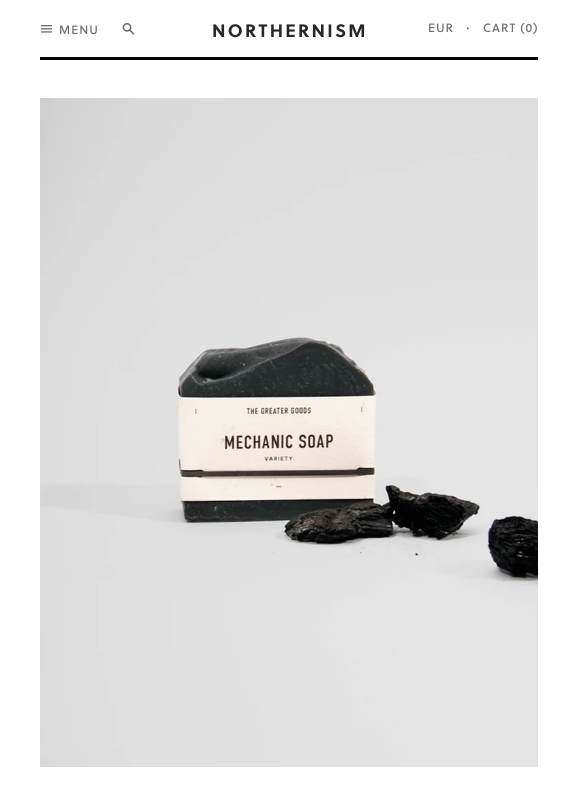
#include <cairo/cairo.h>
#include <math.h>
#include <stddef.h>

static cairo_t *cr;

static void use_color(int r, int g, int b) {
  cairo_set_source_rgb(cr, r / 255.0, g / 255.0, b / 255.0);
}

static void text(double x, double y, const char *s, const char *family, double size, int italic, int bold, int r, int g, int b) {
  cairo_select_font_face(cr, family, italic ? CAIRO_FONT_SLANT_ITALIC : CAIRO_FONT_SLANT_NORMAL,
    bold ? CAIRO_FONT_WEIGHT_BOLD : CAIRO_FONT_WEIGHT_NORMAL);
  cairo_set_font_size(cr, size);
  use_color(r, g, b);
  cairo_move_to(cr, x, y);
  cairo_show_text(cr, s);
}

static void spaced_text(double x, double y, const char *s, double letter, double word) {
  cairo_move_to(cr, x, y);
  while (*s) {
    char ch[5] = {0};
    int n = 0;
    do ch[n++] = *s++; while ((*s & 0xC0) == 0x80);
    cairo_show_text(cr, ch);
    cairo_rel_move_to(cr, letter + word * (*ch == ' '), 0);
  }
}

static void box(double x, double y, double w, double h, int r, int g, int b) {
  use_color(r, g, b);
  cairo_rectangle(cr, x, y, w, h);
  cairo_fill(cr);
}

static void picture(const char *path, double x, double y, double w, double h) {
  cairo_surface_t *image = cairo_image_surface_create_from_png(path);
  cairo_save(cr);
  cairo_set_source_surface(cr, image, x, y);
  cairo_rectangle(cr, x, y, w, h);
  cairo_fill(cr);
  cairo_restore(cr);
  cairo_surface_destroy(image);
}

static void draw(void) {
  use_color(255, 255, 255);
  cairo_paint(cr);
  box(40, 57, 498, 3, 0, 0, 0);
  picture("img_01.png", 40, 25, 12, 8);
  picture("img_02.png", 122, 23, 13, 12);
  picture("img_03.png", 40, 98, 498, 669);
  cairo_select_font_face(cr, "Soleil", CAIRO_FONT_SLANT_NORMAL, CAIRO_FONT_WEIGHT_NORMAL);
  cairo_set_font_size(cr, 12);
  use_color(110, 110, 110);
  spaced_text(59, 34, "MENU", 1, 0);
  cairo_select_font_face(cr, "Soleil", CAIRO_FONT_SLANT_NORMAL, CAIRO_FONT_WEIGHT_BOLD);
  cairo_set_font_size(cr, 18);
  use_color(39, 39, 39);
  spaced_text(212, 37, "NORTHERNISM", 2.25, 0);
  cairo_select_font_face(cr, "Soleil", CAIRO_FONT_SLANT_NORMAL, CAIRO_FONT_WEIGHT_NORMAL);
  cairo_set_font_size(cr, 12);
  use_color(110, 110, 110);
  spaced_text(428, 32, "EUR", 1, 0);
  text(466, 32, "·", "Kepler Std", 16, 0, 0, 110, 110, 110);
  cairo_select_font_face(cr, "Soleil", CAIRO_FONT_SLANT_NORMAL, CAIRO_FONT_WEIGHT_NORMAL);
  cairo_set_font_size(cr, 12);
  spaced_text(483, 32, "CART (0)", 1, 0);
}

int main(void) {
  cairo_surface_t *surface = cairo_image_surface_create(CAIRO_FORMAT_RGB24, 578, 793);
  cr = cairo_create(surface);
  cairo_font_options_t *options = cairo_font_options_create();
  cairo_font_options_set_hint_metrics(options, CAIRO_HINT_METRICS_OFF);
  cairo_font_options_set_hint_style(options, CAIRO_HINT_STYLE_NONE);
  cairo_set_font_options(cr, options);
  cairo_set_miter_limit(cr, 4);
  draw();
  cairo_surface_write_to_png(surface, "out.png");
  cairo_font_options_destroy(options);
  cairo_destroy(cr);
  cairo_surface_destroy(surface);
  return 0;
}
